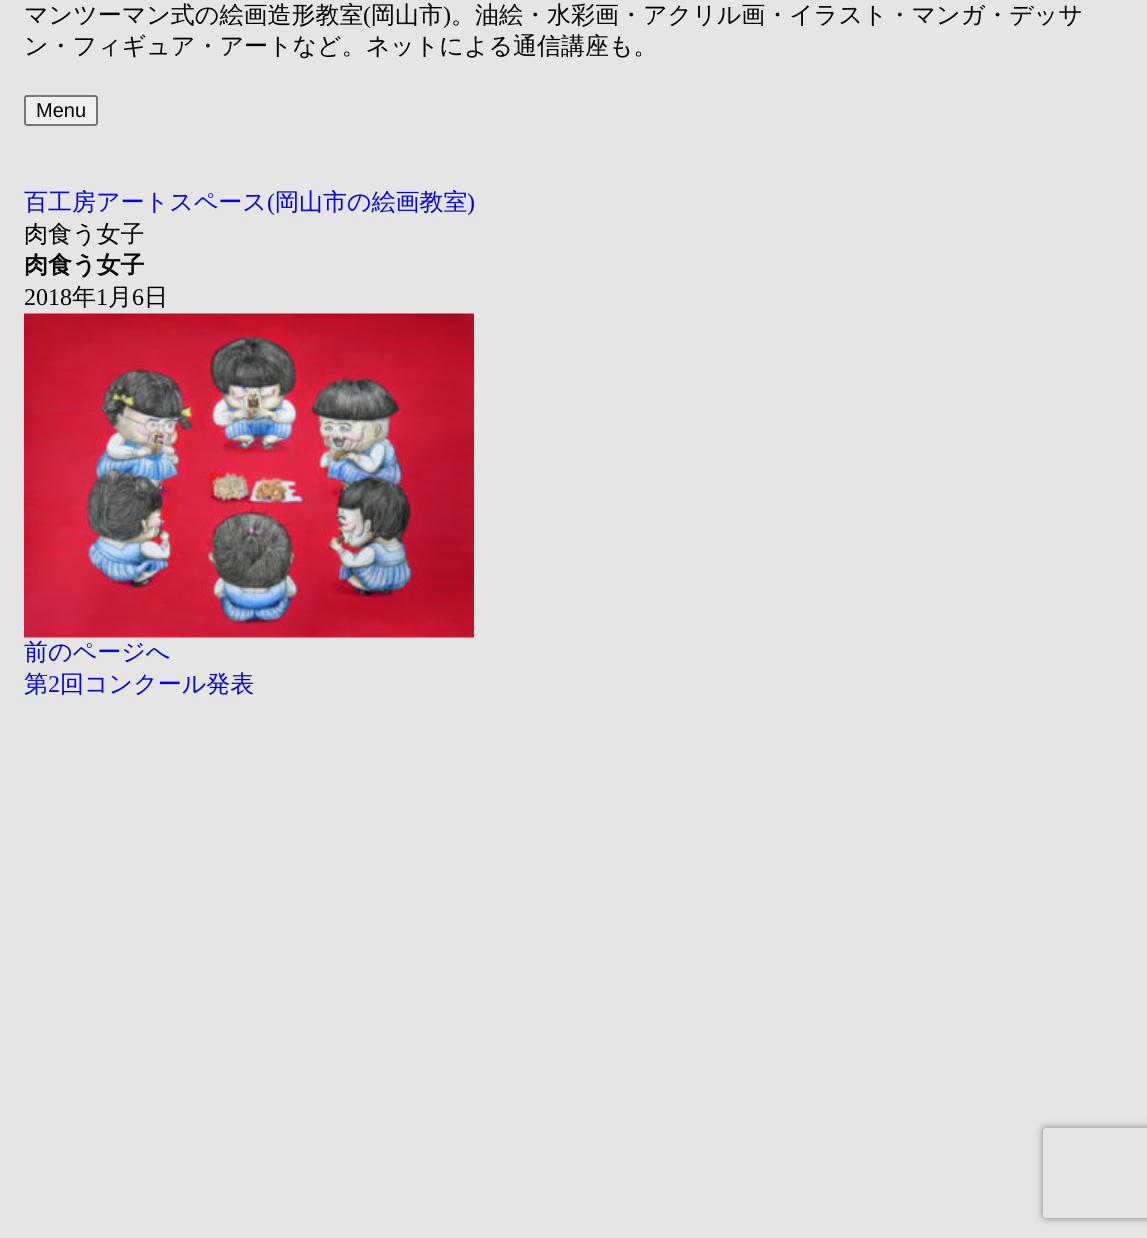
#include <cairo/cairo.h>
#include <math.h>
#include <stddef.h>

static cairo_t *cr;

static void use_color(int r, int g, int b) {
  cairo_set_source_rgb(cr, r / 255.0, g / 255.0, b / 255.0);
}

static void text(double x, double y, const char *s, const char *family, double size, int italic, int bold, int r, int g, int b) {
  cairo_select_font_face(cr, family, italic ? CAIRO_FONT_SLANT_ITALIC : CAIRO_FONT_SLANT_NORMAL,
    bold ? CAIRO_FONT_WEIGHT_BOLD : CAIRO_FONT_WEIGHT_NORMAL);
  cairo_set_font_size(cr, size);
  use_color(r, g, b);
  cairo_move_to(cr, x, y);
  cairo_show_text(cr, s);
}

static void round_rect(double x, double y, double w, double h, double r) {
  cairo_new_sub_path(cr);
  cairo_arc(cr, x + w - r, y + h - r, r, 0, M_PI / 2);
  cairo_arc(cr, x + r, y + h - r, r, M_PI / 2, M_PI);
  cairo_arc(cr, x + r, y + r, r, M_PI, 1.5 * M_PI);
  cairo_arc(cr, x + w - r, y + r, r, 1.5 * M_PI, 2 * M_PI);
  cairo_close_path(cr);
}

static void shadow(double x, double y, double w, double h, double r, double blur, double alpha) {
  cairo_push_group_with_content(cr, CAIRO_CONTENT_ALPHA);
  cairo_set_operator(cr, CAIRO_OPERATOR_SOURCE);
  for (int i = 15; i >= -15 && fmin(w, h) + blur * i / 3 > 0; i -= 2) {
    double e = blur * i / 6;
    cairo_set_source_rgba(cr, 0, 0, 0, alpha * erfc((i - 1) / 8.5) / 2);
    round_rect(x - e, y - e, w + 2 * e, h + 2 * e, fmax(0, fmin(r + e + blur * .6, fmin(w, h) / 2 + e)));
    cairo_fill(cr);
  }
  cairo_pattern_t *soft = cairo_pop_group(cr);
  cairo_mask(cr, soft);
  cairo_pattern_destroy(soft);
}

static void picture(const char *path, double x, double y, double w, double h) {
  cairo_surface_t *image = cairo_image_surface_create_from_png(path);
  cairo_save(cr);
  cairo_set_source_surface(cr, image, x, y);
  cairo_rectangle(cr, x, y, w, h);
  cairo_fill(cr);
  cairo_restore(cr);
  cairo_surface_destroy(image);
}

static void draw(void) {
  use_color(229, 229, 229);
  cairo_paint(cr);
  use_color(239, 239, 239);
  round_rect(25, 96, 72, 29, 2);
  cairo_fill_preserve(cr);
  use_color(118, 118, 118);
  cairo_stroke(cr);
  picture("img_01.png", 24, 313, 450, 325);
  cairo_save(cr);
  cairo_set_fill_rule(cr, CAIRO_FILL_RULE_EVEN_ODD);
  cairo_new_path(cr);
  cairo_move_to(cr, 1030, 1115);
  cairo_line_to(cr, 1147, 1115);
  cairo_line_to(cr, 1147, 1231);
  cairo_line_to(cr, 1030, 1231);
  cairo_close_path(cr);
  cairo_move_to(cr, 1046, 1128);
  cairo_line_to(cr, 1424, 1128);
  cairo_curve_to(cr, 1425.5, 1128, 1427, 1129.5, 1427, 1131);
  cairo_line_to(cr, 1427, 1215);
  cairo_curve_to(cr, 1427, 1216.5, 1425.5, 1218, 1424, 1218);
  cairo_line_to(cr, 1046, 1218);
  cairo_curve_to(cr, 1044.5, 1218, 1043, 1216.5, 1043, 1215);
  cairo_line_to(cr, 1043, 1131);
  cairo_curve_to(cr, 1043, 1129.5, 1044.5, 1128, 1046, 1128);
  cairo_close_path(cr);
  cairo_clip(cr);
  use_color(128, 128, 128);
  shadow(1043, 1128, 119, 90, 3, 4, 1);
  cairo_restore(cr);
  text(24, 23, "マンツーマン式の絵画造形教室", "WenQuanYi Zen Hei Medium", 24, 0, 0, 0, 0, 0);
  text(363, 23, "(", "Liberation Serif", 24, 0, 0, 0, 0, 0);
  text(371, 23, "岡山市", "WenQuanYi Zen Hei Medium", 24, 0, 0, 0, 0, 0);
  text(443, 23, ")", "Liberation Serif", 24, 0, 0, 0, 0, 0);
  text(451, 23, "。油絵・水彩画・アクリル画・イラスト・マンガ・デッサ", "WenQuanYi Zen Hei Medium", 24, 0, 0, 0, 0, 0);
  text(24, 54, "ン・フィギュア・アートなど。ネットによる通信講座も。", "WenQuanYi Zen Hei Medium", 24, 0, 0, 0, 0, 0);
  text(36, 117, "Menu", "Liberation Sans", 20, 0, 0, 0, 0, 0);
  text(24, 210, "百工房アートスペース", "WenQuanYi Zen Hei Medium", 24, 0, 0, 0, 0, 238);
  text(267, 210, "(", "Liberation Serif", 24, 0, 0, 0, 0, 238);
  text(275, 210, "岡山市の絵画教室", "WenQuanYi Zen Hei Medium", 24, 0, 0, 0, 0, 238);
  text(467, 210, ")", "Liberation Serif", 24, 0, 0, 0, 0, 238);
  text(24, 242, "肉食う女子", "WenQuanYi Zen Hei Medium", 24, 0, 0, 0, 0, 0);
  text(24, 273, "肉食う女子", "WenQuanYi Zen Hei", 24, 0, 1, 0, 0, 0);
  text(24, 305, "2018", "Liberation Serif", 24, 0, 0, 0, 0, 0);
  text(72, 305, "年", "WenQuanYi Zen Hei Medium", 24, 0, 0, 0, 0, 0);
  text(96, 305, "1", "Liberation Serif", 24, 0, 0, 0, 0, 0);
  text(108, 305, "月", "WenQuanYi Zen Hei Medium", 24, 0, 0, 0, 0, 0);
  text(132, 305, "6", "Liberation Serif", 24, 0, 0, 0, 0, 0);
  text(144, 305, "日", "WenQuanYi Zen Hei Medium", 24, 0, 0, 0, 0, 0);
  text(24, 660, "前のページへ", "WenQuanYi Zen Hei Medium", 24, 0, 0, 0, 0, 238);
  text(24, 692, "第", "WenQuanYi Zen Hei Medium", 24, 0, 0, 0, 0, 238);
  text(48, 692, "2", "Liberation Serif", 24, 0, 0, 0, 0, 238);
  text(60, 692, "回コンクール発表", "WenQuanYi Zen Hei Medium", 24, 0, 0, 0, 0, 238);
}

int main(void) {
  cairo_surface_t *surface = cairo_image_surface_create(CAIRO_FORMAT_RGB24, 1147, 1238);
  cr = cairo_create(surface);
  cairo_font_options_t *options = cairo_font_options_create();
  cairo_font_options_set_hint_metrics(options, CAIRO_HINT_METRICS_OFF);
  cairo_font_options_set_hint_style(options, CAIRO_HINT_STYLE_NONE);
  cairo_set_font_options(cr, options);
  cairo_set_miter_limit(cr, 4);
  draw();
  cairo_surface_write_to_png(surface, "out.png");
  cairo_font_options_destroy(options);
  cairo_destroy(cr);
  cairo_surface_destroy(surface);
  return 0;
}
